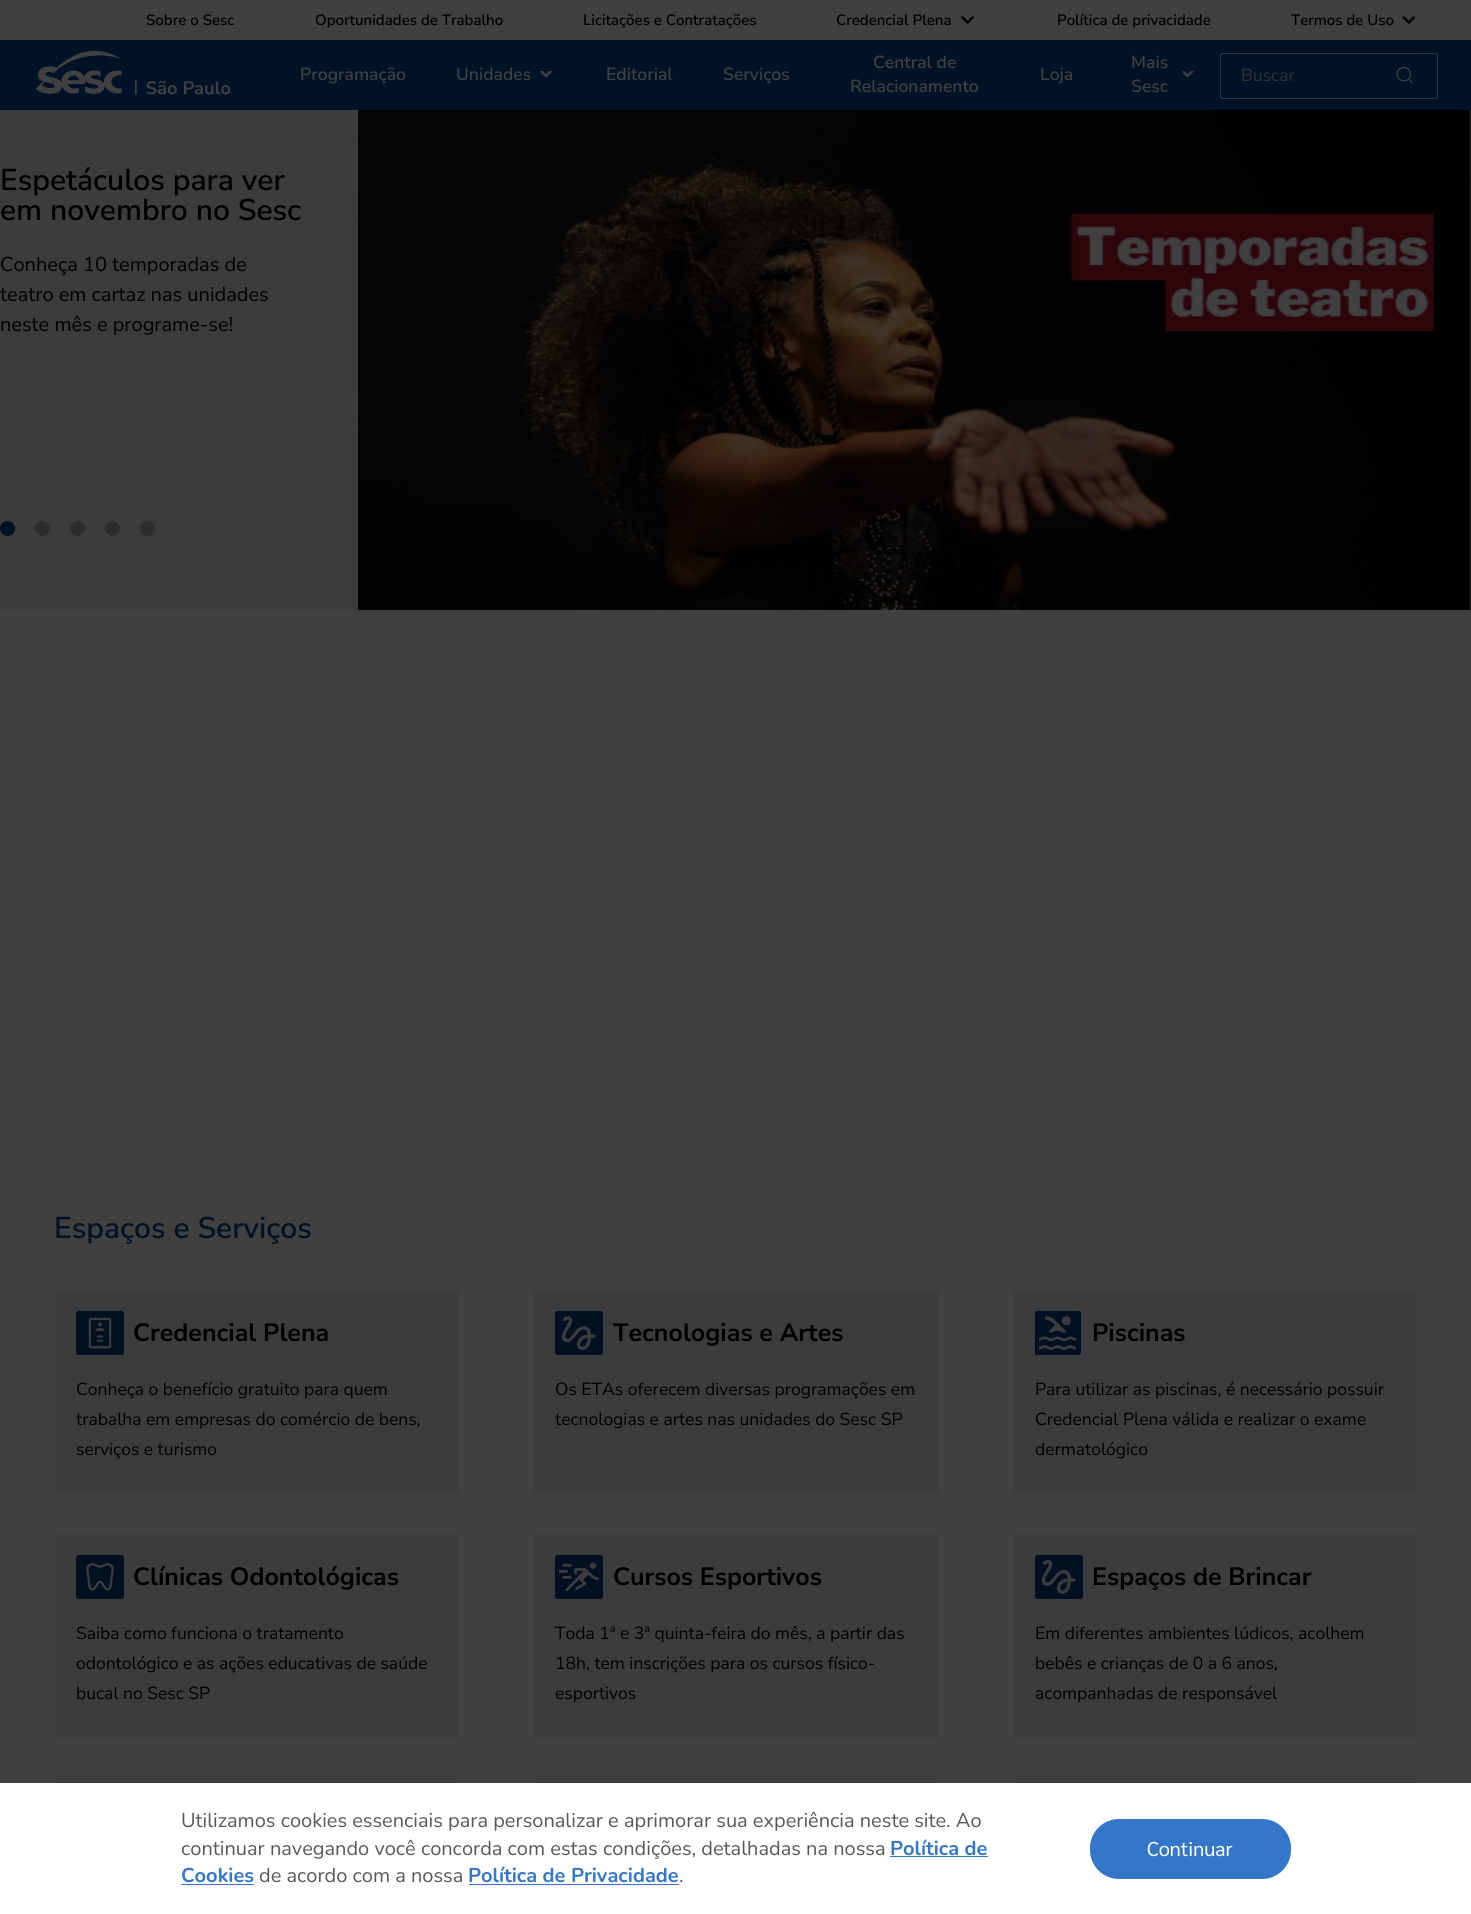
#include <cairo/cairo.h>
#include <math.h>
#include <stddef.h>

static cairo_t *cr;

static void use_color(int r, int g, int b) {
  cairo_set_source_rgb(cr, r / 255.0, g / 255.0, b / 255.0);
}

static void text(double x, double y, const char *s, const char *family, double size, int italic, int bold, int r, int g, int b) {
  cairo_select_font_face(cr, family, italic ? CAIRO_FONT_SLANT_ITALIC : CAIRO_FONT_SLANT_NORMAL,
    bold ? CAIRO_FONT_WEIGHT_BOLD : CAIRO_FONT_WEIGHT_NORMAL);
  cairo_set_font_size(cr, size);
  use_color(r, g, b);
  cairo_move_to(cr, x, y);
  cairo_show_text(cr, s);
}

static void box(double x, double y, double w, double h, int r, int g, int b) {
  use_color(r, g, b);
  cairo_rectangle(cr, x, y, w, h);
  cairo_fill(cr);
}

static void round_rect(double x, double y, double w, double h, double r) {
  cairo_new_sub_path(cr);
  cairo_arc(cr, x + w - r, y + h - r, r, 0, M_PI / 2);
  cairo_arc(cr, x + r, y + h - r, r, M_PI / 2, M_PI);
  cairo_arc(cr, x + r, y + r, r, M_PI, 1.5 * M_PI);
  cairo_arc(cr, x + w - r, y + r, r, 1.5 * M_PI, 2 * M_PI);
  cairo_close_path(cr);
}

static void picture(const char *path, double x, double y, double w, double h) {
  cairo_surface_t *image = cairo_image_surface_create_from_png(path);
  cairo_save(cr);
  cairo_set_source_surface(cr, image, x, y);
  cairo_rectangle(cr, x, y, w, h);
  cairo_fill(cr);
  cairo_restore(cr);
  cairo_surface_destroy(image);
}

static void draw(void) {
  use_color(64, 64, 64);
  cairo_paint(cr);
  picture("img_01.png", 961, 16, 13, 8);
  picture("img_02.png", 1402, 16, 13, 8);
  box(0, 40, 1471, 70, 0, 19, 38);
  picture("img_03.png", 35, 50, 196, 45);
  cairo_save(cr);
  cairo_rectangle(cr, 540, 71, 13, 8);
  cairo_clip(cr);
  cairo_new_path(cr);
  cairo_move_to(cr, 541, 71);
  cairo_line_to(cr, 546, 76);
  cairo_line_to(cr, 551, 71);
  use_color(64, 64, 64);
  cairo_set_line_width(cr, 2.5);
  cairo_set_line_cap(cr, CAIRO_LINE_CAP_ROUND);
  cairo_set_line_join(cr, CAIRO_LINE_JOIN_ROUND);
  cairo_stroke(cr);
  cairo_restore(cr);
  cairo_save(cr);
  cairo_rectangle(cr, 1183, 71, 12, 8);
  cairo_clip(cr);
  cairo_new_path(cr);
  cairo_move_to(cr, 1182.5, 71);
  cairo_line_to(cr, 1187.5, 76);
  cairo_line_to(cr, 1192.5, 71);
  use_color(64, 64, 64);
  cairo_set_line_width(cr, 2.5);
  cairo_set_line_cap(cr, CAIRO_LINE_CAP_ROUND);
  cairo_set_line_join(cr, CAIRO_LINE_JOIN_ROUND);
  cairo_stroke(cr);
  cairo_restore(cr);
  round_rect(1220.5, 53.5, 217, 45, 2);
  use_color(49, 51, 53);
  cairo_set_line_width(cr, 1);
  cairo_stroke(cr);
  picture("img_04.png", 1396, 66, 17, 18);
  box(0, 110, 358, 500, 59, 60, 61);
  picture("img_05.png", 358, 110, 1113, 500);
  use_color(1, 17, 34);
  cairo_arc(cr, 7.5, 528.5, 7.5, 0, 2 * M_PI);
  cairo_fill(cr);
  use_color(45, 45, 45);
  cairo_arc(cr, 42.5, 528.5, 7.5, 0, 2 * M_PI);
  cairo_fill(cr);
  cairo_arc(cr, 77.5, 528.5, 7.5, 0, 2 * M_PI);
  cairo_fill(cr);
  cairo_arc(cr, 112.5, 528.5, 7.5, 0, 2 * M_PI);
  cairo_fill(cr);
  cairo_arc(cr, 147.5, 528.5, 7.5, 0, 2 * M_PI);
  cairo_fill(cr);
  use_color(59, 60, 61);
  round_rect(55, 1290, 403, 204, 2.5);
  cairo_fill(cr);
  picture("img_06.png", 76, 1311, 48, 44);
  round_rect(534, 1290, 404, 204, 2.5);
  cairo_fill(cr);
  picture("img_07.png", 555, 1311, 48, 44);
  round_rect(1014, 1290, 402, 204, 2.5);
  cairo_fill(cr);
  picture("img_08.png", 1035, 1311, 46, 44);
  round_rect(55, 1534, 403, 204, 2.5);
  cairo_fill(cr);
  picture("img_09.png", 76, 1555, 48, 44);
  round_rect(534, 1534, 404, 204, 2.5);
  cairo_fill(cr);
  picture("img_10.png", 555, 1555, 48, 44);
  round_rect(1014, 1534, 402, 204, 2.5);
  cairo_fill(cr);
  picture("img_11.png", 1035, 1555, 48, 44);
  round_rect(55, 1778, 403, 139, 2.5);
  cairo_fill(cr);
  round_rect(534, 1778, 404, 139, 2.5);
  cairo_fill(cr);
  round_rect(1014, 1778, 402, 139, 2.5);
  cairo_fill(cr);
  box(0, 1783, 1471, 131, 255, 255, 255);
  box(890, 1856, 98, 1, 52, 119, 200);
  box(181, 1884, 73, 1, 52, 119, 200);
  box(469, 1884, 210, 1, 52, 119, 200);
  round_rect(1090, 1819, 201, 60, 29);
  cairo_fill(cr);
  text(146, 25, "Sobre o Sesc", "Nunito Sans SemiBold", 15, 0, 0, 0, 0, 0);
  text(315, 25, "Oportunidades de Trabalho", "Nunito Sans SemiBold", 15, 0, 0, 0, 0, 0);
  text(583, 25, "Licitações e Contratações", "Nunito Sans SemiBold", 15, 0, 0, 0, 0, 0);
  text(836, 25, "Credencial Plena", "Nunito Sans SemiBold", 15, 0, 0, 0, 0, 0);
  text(1057, 25, "Política de privacidade", "Nunito Sans SemiBold", 15, 0, 0, 0, 0, 0);
  text(1291, 25, "Termos de Uso", "Nunito Sans SemiBold", 15, 0, 0, 0, 0, 0);
  text(300, 80, "Programação", "Nunito Sans SemiBold", 17.5, 0, 0, 64, 64, 64);
  text(456, 80, "Unidades", "Nunito Sans SemiBold", 17.5, 0, 0, 64, 64, 64);
  text(606, 80, "Editorial", "Nunito Sans SemiBold", 17.5, 0, 0, 64, 64, 64);
  text(723, 80, "Serviços", "Nunito Sans SemiBold", 17.5, 0, 0, 64, 64, 64);
  text(873, 68, "Central de", "Nunito Sans SemiBold", 17.5, 0, 0, 64, 64, 64);
  text(850, 92, "Relacionamento", "Nunito Sans SemiBold", 17.5, 0, 0, 64, 64, 64);
  text(1040, 80, "Loja", "Nunito Sans SemiBold", 17.5, 0, 0, 64, 64, 64);
  text(1131, 68, "Mais", "Nunito Sans SemiBold", 17.5, 0, 0, 64, 64, 64);
  text(1131, 92, "Sesc", "Nunito Sans SemiBold", 17.5, 0, 0, 64, 64, 64);
  text(1241, 81, "Buscar", "Nunito Sans", 17.5, 0, 0, 49, 51, 53);
  text(0, 190, "Espetáculos para ver", "Nunito Sans SemiBold", 30, 0, 0, 0, 0, 0);
  text(0, 220, "em novembro no Sesc", "Nunito Sans SemiBold", 30, 0, 0, 0, 0, 0);
  text(0, 271, "Conheça 10 temporadas de", "Nunito Sans", 20, 0, 0, 0, 0, 0);
  text(0, 301, "teatro em cartaz nas unidades", "Nunito Sans", 20, 0, 0, 0, 0, 0);
  text(0, 331, "neste mês e programe-se!", "Nunito Sans", 20, 0, 0, 0, 0, 0);
  text(54, 1238, "Espaços e Serviços", "Nunito Sans SemiBold", 30, 0, 0, 0, 19, 38);
  text(133, 1341, "Credencial Plena", "Nunito Sans", 25, 0, 1, 0, 0, 0);
  text(76, 1395, "Conheça o benefício gratuito para quem", "Nunito Sans", 17.5, 0, 0, 0, 0, 0);
  text(76, 1425, "trabalha em empresas do comércio de bens,", "Nunito Sans", 17.5, 0, 0, 0, 0, 0);
  text(76, 1455, "serviços e turismo", "Nunito Sans", 17.5, 0, 0, 0, 0, 0);
  text(613, 1341, "Tecnologias e Artes", "Nunito Sans", 25, 0, 1, 0, 0, 0);
  text(555, 1395, "Os ETAs oferecem diversas programações em", "Nunito Sans", 17.5, 0, 0, 0, 0, 0);
  text(555, 1425, "tecnologias e artes nas unidades do Sesc SP", "Nunito Sans", 17.5, 0, 0, 0, 0, 0);
  text(1092, 1341, "Piscinas", "Nunito Sans", 25, 0, 1, 0, 0, 0);
  text(1035, 1395, "Para utilizar as piscinas, é necessário possuir", "Nunito Sans", 17.5, 0, 0, 0, 0, 0);
  text(1035, 1425, "Credencial Plena válida e realizar o exame", "Nunito Sans", 17.5, 0, 0, 0, 0, 0);
  text(1035, 1455, "dermatológico", "Nunito Sans", 17.5, 0, 0, 0, 0, 0);
  text(133, 1585, "Clínicas Odontológicas", "Nunito Sans", 25, 0, 1, 0, 0, 0);
  text(76, 1639, "Saiba como funciona o tratamento", "Nunito Sans", 17.5, 0, 0, 0, 0, 0);
  text(76, 1669, "odontológico e as ações educativas de saúde", "Nunito Sans", 17.5, 0, 0, 0, 0, 0);
  text(76, 1699, "bucal no Sesc SP", "Nunito Sans", 17.5, 0, 0, 0, 0, 0);
  text(613, 1585, "Cursos Esportivos", "Nunito Sans", 25, 0, 1, 0, 0, 0);
  text(555, 1639, "Toda 1ª e 3ª quinta-feira do mês, a partir das", "Nunito Sans", 17.5, 0, 0, 0, 0, 0);
  text(555, 1669, "18h, tem inscrições para os cursos físico-", "Nunito Sans", 17.5, 0, 0, 0, 0, 0);
  text(555, 1699, "esportivos", "Nunito Sans", 17.5, 0, 0, 0, 0, 0);
  text(1092, 1585, "Espaços de Brincar", "Nunito Sans", 25, 0, 1, 0, 0, 0);
  text(1035, 1639, "Em diferentes ambientes lúdicos, acolhem", "Nunito Sans", 17.5, 0, 0, 0, 0, 0);
  text(1035, 1669, "bebês e crianças de 0 a 6 anos,", "Nunito Sans", 17.5, 0, 0, 0, 0, 0);
  text(1035, 1699, "acompanhadas de responsável", "Nunito Sans", 17.5, 0, 0, 0, 0, 0);
  text(181, 1827, "Utilizamos cookies essenciais para personalizar e aprimorar sua experiência neste site. Ao", "Nunito", 20, 0, 0, 88, 88, 88);
  text(181, 1855, "continuar navegando você concorda com estas condições, detalhadas na nossa", "Nunito", 20, 0, 0, 88, 88, 88);
  text(890, 1855, "Política de", "Nunito", 20, 0, 1, 52, 119, 200);
  text(181, 1882, "Cookies", "Nunito", 20, 0, 1, 52, 119, 200);
  text(259, 1882, "de acordo com a nossa", "Nunito", 20, 0, 0, 88, 88, 88);
  text(468, 1882, "Política de Privacidade", "Nunito", 20, 0, 1, 52, 119, 200);
  text(679, 1882, ".", "Nunito", 20, 0, 0, 88, 88, 88);
  text(1147, 1856, "Continuar", "Sarabun", 20, 0, 0, 255, 255, 255);
}

int main(void) {
  cairo_surface_t *surface = cairo_image_surface_create(CAIRO_FORMAT_RGB24, 1471, 1914);
  cr = cairo_create(surface);
  cairo_font_options_t *options = cairo_font_options_create();
  cairo_font_options_set_hint_metrics(options, CAIRO_HINT_METRICS_OFF);
  cairo_font_options_set_hint_style(options, CAIRO_HINT_STYLE_NONE);
  cairo_set_font_options(cr, options);
  cairo_set_miter_limit(cr, 4);
  draw();
  cairo_surface_write_to_png(surface, "out.png");
  cairo_font_options_destroy(options);
  cairo_destroy(cr);
  cairo_surface_destroy(surface);
  return 0;
}
